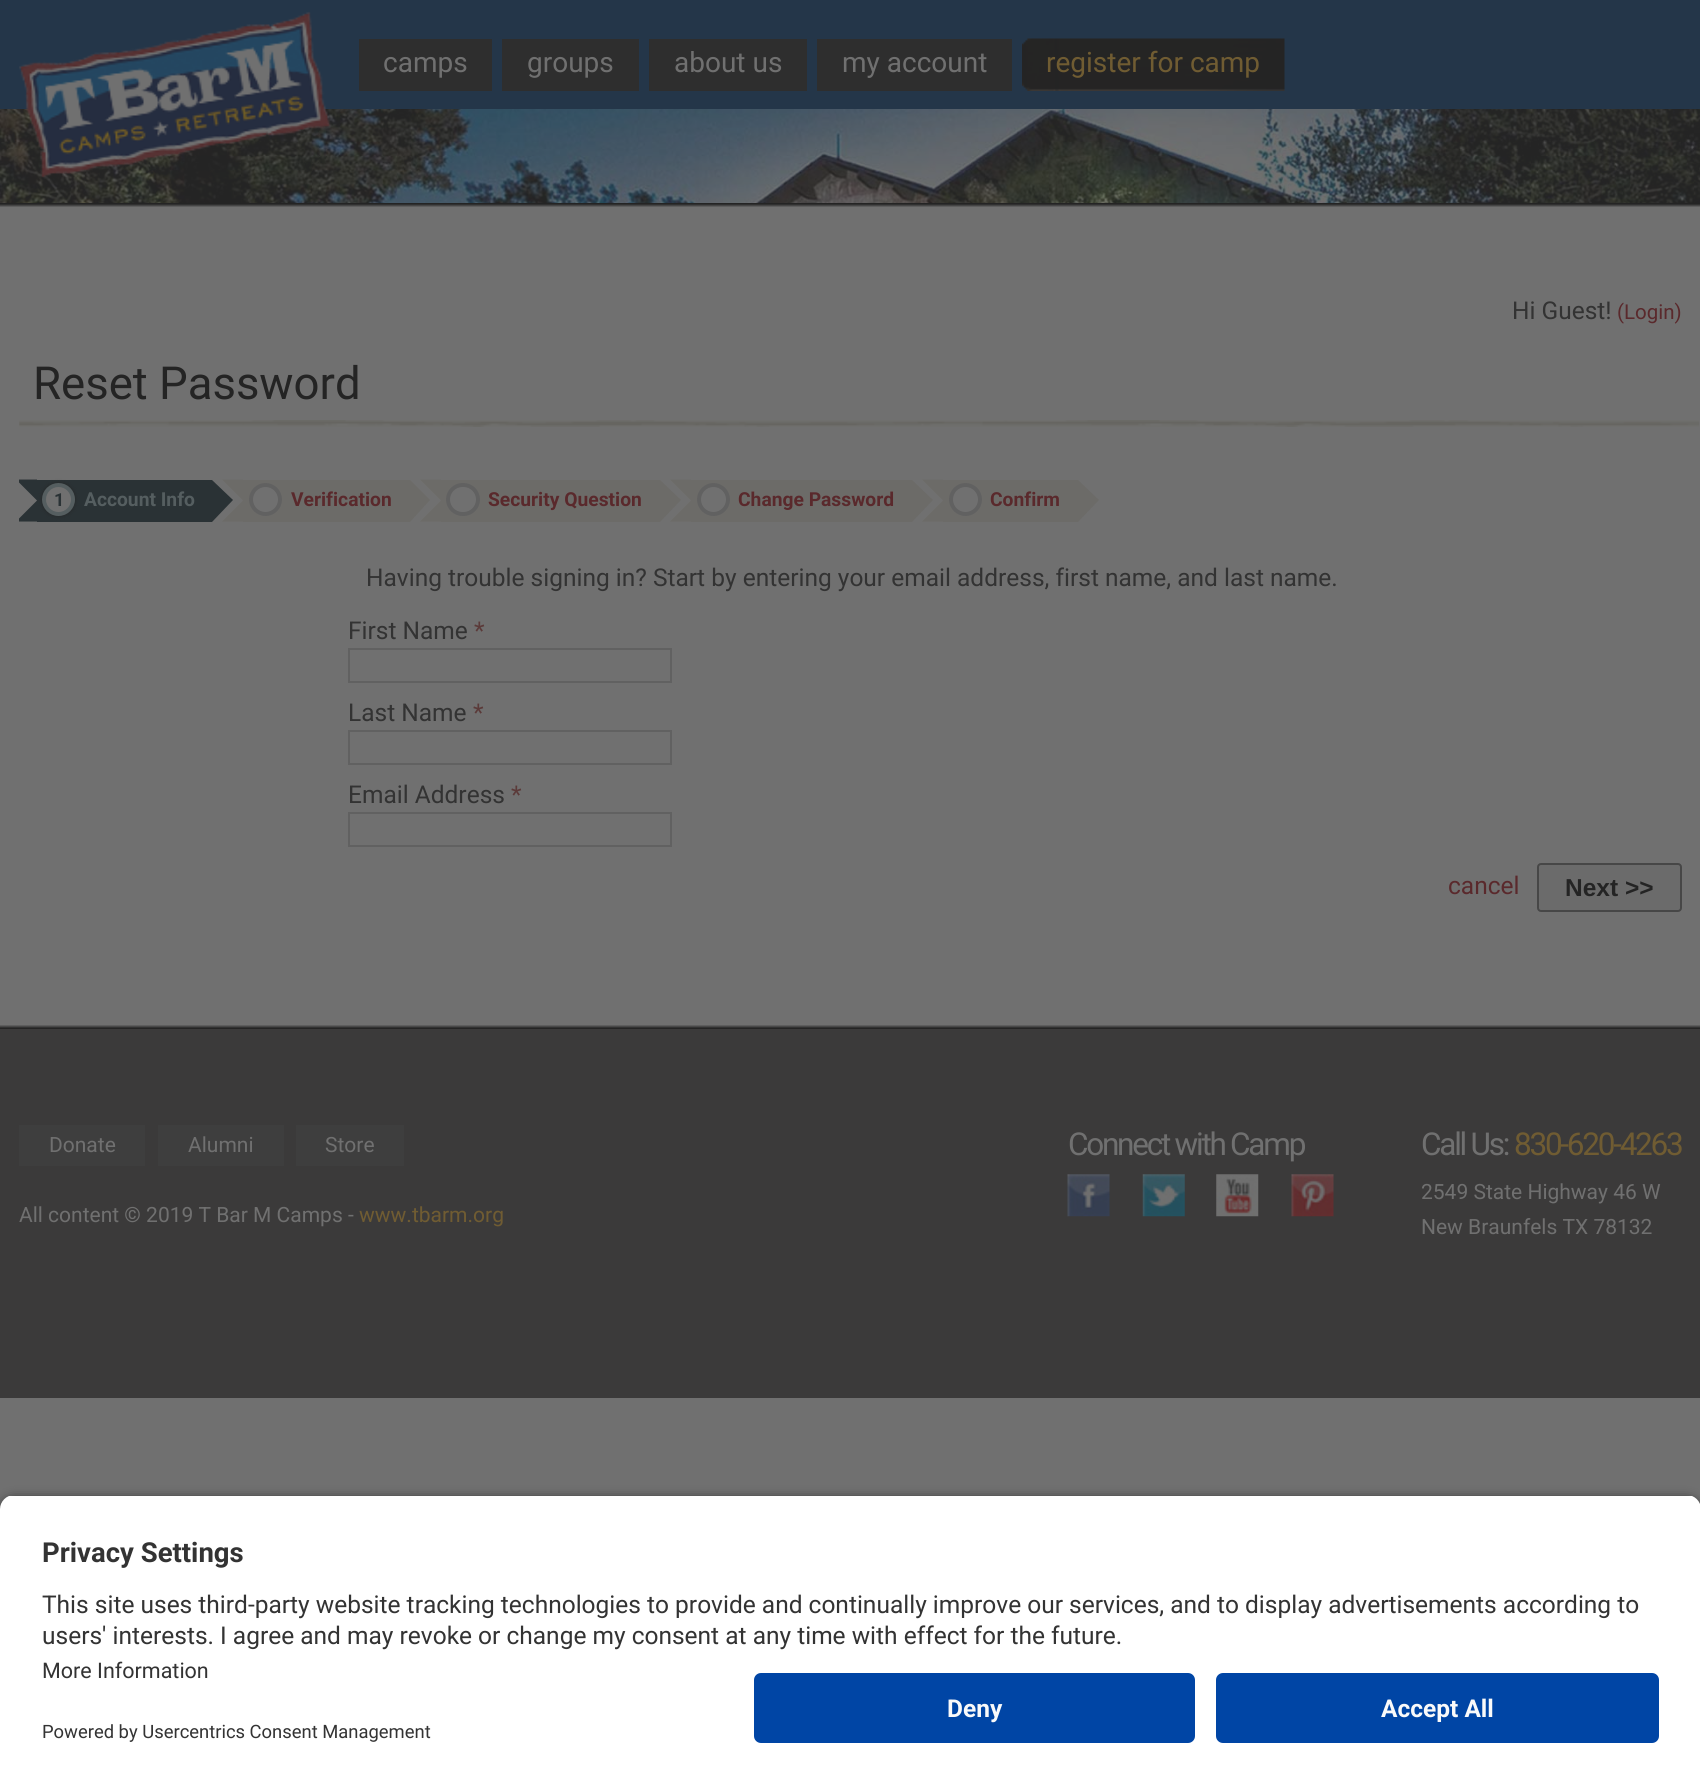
#include <cairo/cairo.h>
#include <math.h>
#include <stddef.h>

static cairo_t *cr;

static void use_color(int r, int g, int b) {
  cairo_set_source_rgb(cr, r / 255.0, g / 255.0, b / 255.0);
}

static void text(double x, double y, const char *s, const char *family, double size, int italic, int bold, int r, int g, int b) {
  cairo_select_font_face(cr, family, italic ? CAIRO_FONT_SLANT_ITALIC : CAIRO_FONT_SLANT_NORMAL,
    bold ? CAIRO_FONT_WEIGHT_BOLD : CAIRO_FONT_WEIGHT_NORMAL);
  cairo_set_font_size(cr, size);
  use_color(r, g, b);
  cairo_move_to(cr, x, y);
  cairo_show_text(cr, s);
}

static void spaced_text(double x, double y, const char *s, double letter, double word) {
  cairo_move_to(cr, x, y);
  while (*s) {
    char ch[5] = {0};
    int n = 0;
    do ch[n++] = *s++; while ((*s & 0xC0) == 0x80);
    cairo_show_text(cr, ch);
    cairo_rel_move_to(cr, letter + word * (*ch == ' '), 0);
  }
}

static void box(double x, double y, double w, double h, int r, int g, int b) {
  use_color(r, g, b);
  cairo_rectangle(cr, x, y, w, h);
  cairo_fill(cr);
}

static void round_rect(double x, double y, double w, double h, double r) {
  cairo_new_sub_path(cr);
  cairo_arc(cr, x + w - r, y + h - r, r, 0, M_PI / 2);
  cairo_arc(cr, x + r, y + h - r, r, M_PI / 2, M_PI);
  cairo_arc(cr, x + r, y + r, r, M_PI, 1.5 * M_PI);
  cairo_arc(cr, x + w - r, y + r, r, 1.5 * M_PI, 2 * M_PI);
  cairo_close_path(cr);
}

static void shadow(double x, double y, double w, double h, double r, double blur, double alpha) {
  cairo_push_group_with_content(cr, CAIRO_CONTENT_ALPHA);
  cairo_set_operator(cr, CAIRO_OPERATOR_SOURCE);
  for (int i = 15; i >= -15 && fmin(w, h) + blur * i / 3 > 0; i -= 2) {
    double e = blur * i / 6;
    cairo_set_source_rgba(cr, 0, 0, 0, alpha * erfc((i - 1) / 8.5) / 2);
    round_rect(x - e, y - e, w + 2 * e, h + 2 * e, fmax(0, fmin(r + e + blur * .6, fmin(w, h) / 2 + e)));
    cairo_fill(cr);
  }
  cairo_pattern_t *soft = cairo_pop_group(cr);
  cairo_mask(cr, soft);
  cairo_pattern_destroy(soft);
}

static void picture(const char *path, double x, double y, double w, double h) {
  cairo_surface_t *image = cairo_image_surface_create_from_png(path);
  cairo_save(cr);
  cairo_set_source_surface(cr, image, x, y);
  cairo_rectangle(cr, x, y, w, h);
  cairo_fill(cr);
  cairo_restore(cr);
  cairo_surface_destroy(image);
}

static void draw(void) {
  use_color(112, 112, 112);
  cairo_paint(cr);
  box(0, 1029, 1700, 369, 59, 58, 58);
  box(0, 0, 1700, 109, 36, 54, 73);
  picture("img_03.png", 0, 109, 1700, 94);
  picture("img_01.png", 19, 11, 313, 167);
  box(359, 39, 133, 52, 46, 46, 46);
  box(502, 39, 137, 52, 46, 46, 46);
  box(649, 39, 158, 52, 46, 46, 46);
  box(817, 39, 195, 52, 46, 46, 46);
  picture("img_02.png", 1022, 38, 263, 53);
  picture("img_04.png", 0, 203, 1700, 4);
  picture("img_05.png", 0, 1025, 1700, 4);
  picture("img_06.png", 19, 420, 1681, 7);
  box(37, 480, 175, 42, 42, 50, 53);
  use_color(36, 36, 36);
  shadow(42, 483, 33, 33, 16.5, 2, 0.8);
  cairo_save(cr);
  cairo_rectangle(cr, 19, 427, 1680, 502);
  cairo_clip(cr);
  use_color(42, 50, 53);
  cairo_new_path(cr);
  cairo_move_to(cr, 16, 479.5);
  cairo_line_to(cr, 37, 479.5);
  cairo_line_to(cr, 37, 500.5);
  cairo_close_path(cr);
  cairo_fill(cr);
  cairo_new_path(cr);
  cairo_move_to(cr, 37, 521.5);
  cairo_line_to(cr, 16, 521.5);
  cairo_line_to(cr, 37, 500.5);
  cairo_close_path(cr);
  cairo_fill(cr);
  cairo_restore(cr);
  use_color(112, 112, 112);
  cairo_arc(cr, 58.5, 499.5, 14.5, 0, 2 * M_PI);
  cairo_fill_preserve(cr);
  use_color(85, 94, 96);
  cairo_set_line_width(cr, 4);
  cairo_stroke(cr);
  use_color(42, 50, 53);
  cairo_new_path(cr);
  cairo_move_to(cr, 212, 522);
  cairo_line_to(cr, 212, 480);
  cairo_line_to(cr, 233, 500);
  cairo_close_path(cr);
  cairo_fill(cr);
  box(243, 480, 167, 42, 108, 107, 104);
  cairo_new_path(cr);
  cairo_move_to(cr, 222, 479.5);
  cairo_line_to(cr, 243, 479.5);
  cairo_line_to(cr, 243, 500.5);
  cairo_close_path(cr);
  cairo_fill(cr);
  cairo_new_path(cr);
  cairo_move_to(cr, 243, 521.5);
  cairo_line_to(cr, 222, 521.5);
  cairo_line_to(cr, 243, 500.5);
  cairo_close_path(cr);
  cairo_fill(cr);
  use_color(112, 112, 112);
  cairo_arc(cr, 265.5, 499.5, 14.5, 0, 2 * M_PI);
  cairo_fill_preserve(cr);
  use_color(97, 97, 97);
  cairo_stroke(cr);
  use_color(108, 107, 104);
  cairo_new_path(cr);
  cairo_move_to(cr, 410, 522);
  cairo_line_to(cr, 410, 480);
  cairo_line_to(cr, 430, 500);
  cairo_close_path(cr);
  cairo_fill(cr);
  box(441, 480, 219, 42, 108, 107, 104);
  cairo_new_path(cr);
  cairo_move_to(cr, 420, 479.5);
  cairo_line_to(cr, 441, 479.5);
  cairo_line_to(cr, 441, 500.5);
  cairo_close_path(cr);
  cairo_fill(cr);
  cairo_new_path(cr);
  cairo_move_to(cr, 441, 521.5);
  cairo_line_to(cr, 420, 521.5);
  cairo_line_to(cr, 441, 500.5);
  cairo_close_path(cr);
  cairo_fill(cr);
  use_color(112, 112, 112);
  round_rect(448, 485, 30, 29, 14.5);
  cairo_fill_preserve(cr);
  use_color(97, 97, 97);
  cairo_stroke(cr);
  use_color(108, 107, 104);
  cairo_new_path(cr);
  cairo_move_to(cr, 660, 522);
  cairo_line_to(cr, 660, 480);
  cairo_line_to(cr, 681, 500);
  cairo_close_path(cr);
  cairo_fill(cr);
  box(691, 480, 221, 42, 108, 107, 104);
  cairo_new_path(cr);
  cairo_move_to(cr, 670, 479.5);
  cairo_line_to(cr, 691, 479.5);
  cairo_line_to(cr, 691, 500.5);
  cairo_close_path(cr);
  cairo_fill(cr);
  cairo_new_path(cr);
  cairo_move_to(cr, 691, 521.5);
  cairo_line_to(cr, 670, 521.5);
  cairo_line_to(cr, 691, 500.5);
  cairo_close_path(cr);
  cairo_fill(cr);
  use_color(112, 112, 112);
  cairo_arc(cr, 713.5, 499.5, 14.5, 0, 2 * M_PI);
  cairo_fill_preserve(cr);
  use_color(97, 97, 97);
  cairo_stroke(cr);
  use_color(108, 107, 104);
  cairo_new_path(cr);
  cairo_move_to(cr, 912, 522);
  cairo_line_to(cr, 912, 480);
  cairo_line_to(cr, 933, 500);
  cairo_close_path(cr);
  cairo_fill(cr);
  box(943, 480, 135, 42, 108, 107, 104);
  cairo_new_path(cr);
  cairo_move_to(cr, 922, 479.5);
  cairo_line_to(cr, 943, 479.5);
  cairo_line_to(cr, 943, 500.5);
  cairo_close_path(cr);
  cairo_fill(cr);
  cairo_new_path(cr);
  cairo_move_to(cr, 943, 521.5);
  cairo_line_to(cr, 922, 521.5);
  cairo_line_to(cr, 943, 500.5);
  cairo_close_path(cr);
  cairo_fill(cr);
  use_color(112, 112, 112);
  cairo_arc(cr, 965.5, 499.5, 14.5, 0, 2 * M_PI);
  cairo_fill_preserve(cr);
  use_color(97, 97, 97);
  cairo_stroke(cr);
  use_color(108, 107, 104);
  cairo_new_path(cr);
  cairo_move_to(cr, 1078, 522);
  cairo_line_to(cr, 1078, 480);
  cairo_line_to(cr, 1099, 500);
  cairo_close_path(cr);
  cairo_fill(cr);
  cairo_rectangle(cr, 349, 649, 322, 33);
  use_color(97, 97, 97);
  cairo_set_line_width(cr, 2);
  cairo_stroke(cr);
  cairo_rectangle(cr, 349, 731, 322, 33);
  cairo_stroke(cr);
  cairo_rectangle(cr, 349, 813, 322, 33);
  cairo_stroke(cr);
  use_color(107, 107, 107);
  round_rect(1538, 864, 143, 47, 3);
  cairo_fill_preserve(cr);
  use_color(71, 71, 71);
  cairo_stroke(cr);
  box(19, 1125, 126, 41, 62, 62, 62);
  box(158, 1125, 126, 41, 62, 62, 62);
  box(296, 1125, 108, 41, 62, 62, 62);
  picture("img_07.png", 1067, 1174, 43, 43);
  picture("img_08.png", 1142, 1174, 43, 43);
  picture("img_09.png", 1216, 1174, 43, 43);
  picture("img_10.png", 1291, 1174, 43, 43);
  use_color(0, 0, 0);
  shadow(0, 1500, 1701, 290, 14, 6, 0.8);
  cairo_save(cr);
  cairo_new_path(cr);
  cairo_move_to(cr, 14, 1495);
  cairo_line_to(cr, 1687, 1495);
  cairo_curve_to(cr, 1694.5, 1495, 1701, 1501.5, 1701, 1509);
  cairo_line_to(cr, 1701, 1659);
  cairo_line_to(cr, 0, 1659);
  cairo_line_to(cr, 0, 1509);
  cairo_curve_to(cr, 0, 1501.5, 6.5, 1495, 14, 1495);
  cairo_close_path(cr);
  cairo_clip(cr);
  box(0, 1496, 1700, 163, 255, 255, 255);
  cairo_restore(cr);
  box(0, 1659, 1700, 125, 255, 255, 255);
  use_color(0, 69, 165);
  round_rect(754, 1673, 441, 70, 7);
  cairo_fill(cr);
  round_rect(1216, 1673, 443, 70, 7);
  cairo_fill(cr);
  text(383, 72, "camps", "Roboto", 28, 0, 0, 112, 112, 112);
  text(527, 72, "groups", "Roboto", 28, 0, 0, 112, 112, 112);
  text(674, 72, "about us", "Roboto", 28, 0, 0, 112, 112, 112);
  text(842, 72, "my account", "Roboto", 28, 0, 0, 112, 112, 112);
  text(1046, 72, "register for camp", "Roboto", 28, 0, 0, 112, 92, 50);
  text(1512, 319, "Hi Guest!", "Roboto", 24.5, 0, 0, 51, 51, 51);
  text(1617, 319, "(Login)", "Roboto", 20.5, 0, 0, 90, 41, 44);
  text(33, 399, "Reset Password", "Roboto", 45.5, 0, 0, 36, 36, 36);
  text(54, 506, "1", "Roboto", 18, 0, 1, 42, 50, 53);
  text(84, 506, "Account Info", "Roboto", 19.25, 0, 1, 85, 94, 96);
  text(291, 506, "Verification", "Roboto", 19.25, 0, 1, 90, 41, 44);
  text(488, 506, "Security Question", "Roboto", 19.25, 0, 1, 90, 41, 44);
  text(738, 506, "Change Password", "Roboto", 19.25, 0, 1, 90, 41, 44);
  text(990, 506, "Confirm", "Roboto", 19.25, 0, 1, 90, 41, 44);
  text(366, 586, "Having trouble signing in? Start by entering your email address, first name, and last name.", "Roboto", 24.5, 0, 0, 51, 51, 51);
  text(348, 639, "First Name", "Roboto", 24.5, 0, 0, 51, 51, 51);
  text(474, 639, "*", "Roboto", 24.5, 0, 0, 91, 58, 57);
  text(348, 721, "Last Name", "Roboto", 24.5, 0, 0, 51, 51, 51);
  text(473, 721, "*", "Roboto", 24.5, 0, 0, 91, 58, 57);
  text(348, 803, "Email Address", "Roboto", 24.5, 0, 0, 51, 51, 51);
  text(511, 803, "*", "Roboto", 24.5, 0, 0, 91, 58, 57);
  text(1448, 894, "cancel", "Roboto", 24.5, 0, 0, 90, 41, 44);
  text(1565, 896, "Next >>", "Liberation Sans", 24.5, 0, 1, 36, 36, 36);
  text(49, 1152, "Donate", "Roboto", 21, 0, 0, 112, 112, 112);
  text(188, 1152, "Alumni", "Roboto", 21, 0, 0, 112, 112, 112);
  text(325, 1152, "Store", "Roboto", 21, 0, 0, 112, 112, 112);
  cairo_set_font_size(cr, 31.5);
  spaced_text(1068, 1155, "Connect with Camp", -2.25, 0);
  spaced_text(1421, 1155, "Call Us:", -2.25, 0);
  use_color(112, 92, 50);
  spaced_text(1514, 1155, "830-620-4263", -2.25, 0);
  text(1421, 1199, "2549 State Highway 46 W", "Roboto", 21, 0, 0, 112, 112, 112);
  text(1421, 1234, "New Braunfels TX 78132", "Roboto", 21, 0, 0, 112, 112, 112);
  text(19, 1222, "All content © 2019 T Bar M Camps -", "Roboto", 21, 0, 0, 112, 112, 112);
  text(359, 1222, "www.tbarm.org", "Roboto", 21, 0, 0, 112, 92, 50);
  text(42, 1562, "Privacy Settings", "Roboto", 27.5, 0, 1, 51, 51, 51);
  text(42, 1613, "This site uses third-party website tracking technologies to provide and continually improve our services, and to display advertisements according to", "Roboto", 24.5, 0, 0, 51, 51, 51);
  text(42, 1644, "users' interests. I agree and may revoke or change my consent at any time with effect for the future.", "Roboto", 24.5, 0, 0, 51, 51, 51);
  text(42, 1678, "More Information", "Roboto", 21.5, 0, 0, 51, 51, 51);
  text(42, 1738, "Powered by Usercentrics Consent Management", "Roboto", 18.4, 0, 0, 51, 51, 51);
  text(947, 1717, "Deny", "Roboto", 24.5, 0, 1, 250, 250, 250);
  text(1381, 1717, "Accept All", "Roboto", 24.5, 0, 1, 250, 250, 250);
}

int main(void) {
  cairo_surface_t *surface = cairo_image_surface_create(CAIRO_FORMAT_RGB24, 1700, 1784);
  cr = cairo_create(surface);
  cairo_font_options_t *options = cairo_font_options_create();
  cairo_font_options_set_hint_metrics(options, CAIRO_HINT_METRICS_OFF);
  cairo_font_options_set_hint_style(options, CAIRO_HINT_STYLE_NONE);
  cairo_set_font_options(cr, options);
  cairo_set_miter_limit(cr, 4);
  draw();
  cairo_surface_write_to_png(surface, "out.png");
  cairo_font_options_destroy(options);
  cairo_destroy(cr);
  cairo_surface_destroy(surface);
  return 0;
}
